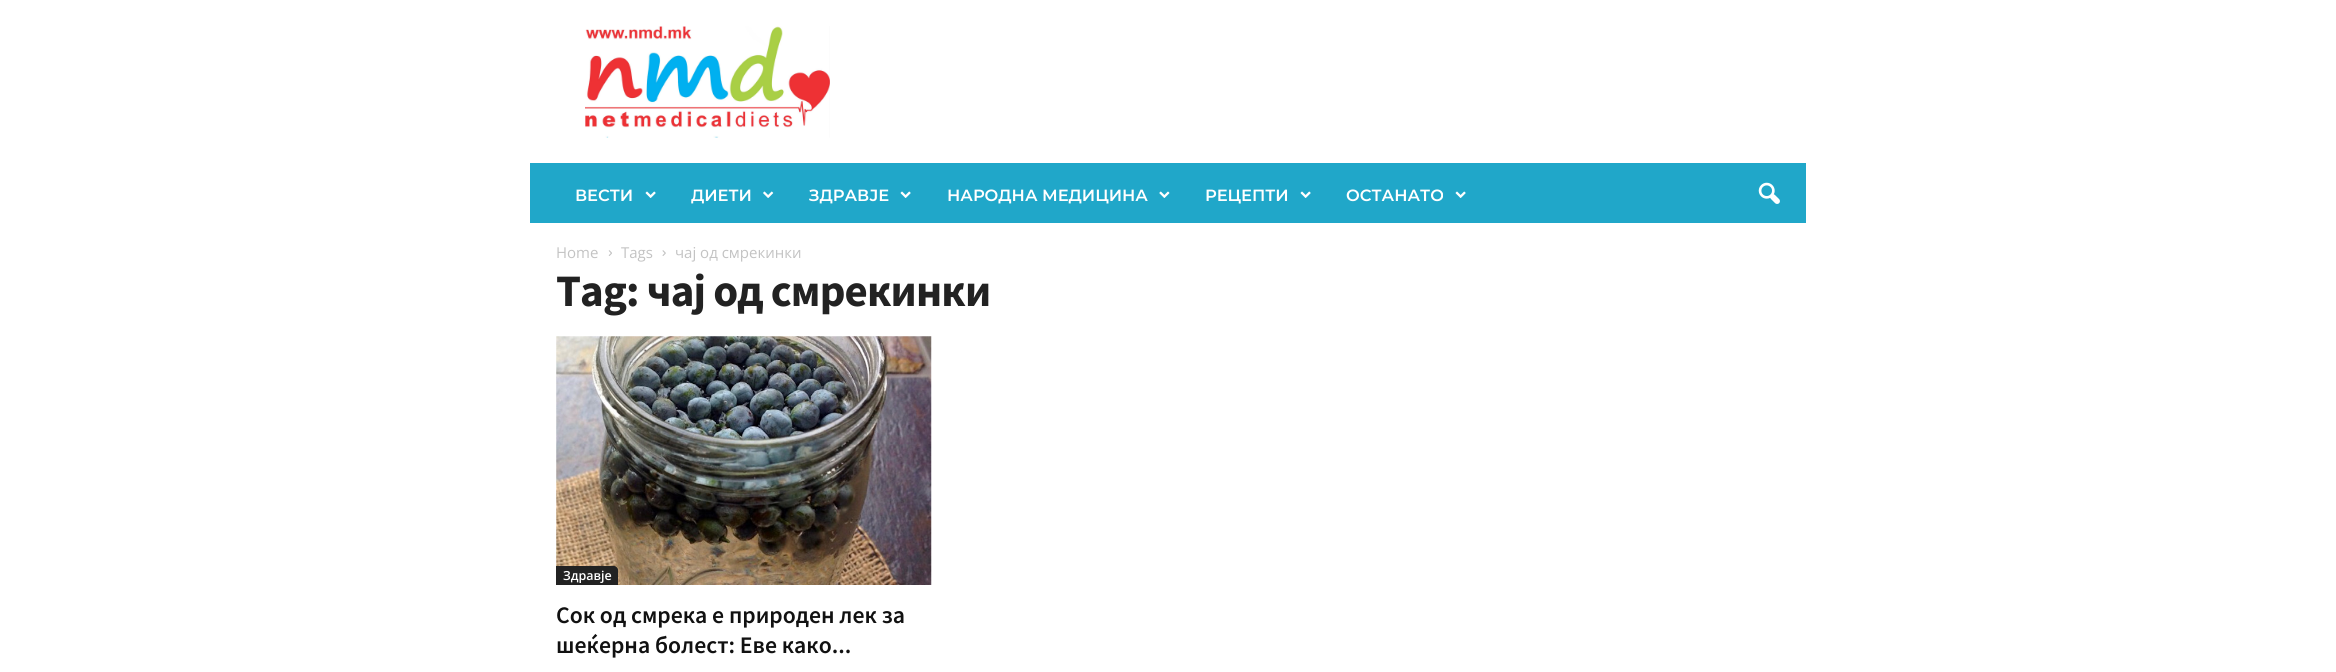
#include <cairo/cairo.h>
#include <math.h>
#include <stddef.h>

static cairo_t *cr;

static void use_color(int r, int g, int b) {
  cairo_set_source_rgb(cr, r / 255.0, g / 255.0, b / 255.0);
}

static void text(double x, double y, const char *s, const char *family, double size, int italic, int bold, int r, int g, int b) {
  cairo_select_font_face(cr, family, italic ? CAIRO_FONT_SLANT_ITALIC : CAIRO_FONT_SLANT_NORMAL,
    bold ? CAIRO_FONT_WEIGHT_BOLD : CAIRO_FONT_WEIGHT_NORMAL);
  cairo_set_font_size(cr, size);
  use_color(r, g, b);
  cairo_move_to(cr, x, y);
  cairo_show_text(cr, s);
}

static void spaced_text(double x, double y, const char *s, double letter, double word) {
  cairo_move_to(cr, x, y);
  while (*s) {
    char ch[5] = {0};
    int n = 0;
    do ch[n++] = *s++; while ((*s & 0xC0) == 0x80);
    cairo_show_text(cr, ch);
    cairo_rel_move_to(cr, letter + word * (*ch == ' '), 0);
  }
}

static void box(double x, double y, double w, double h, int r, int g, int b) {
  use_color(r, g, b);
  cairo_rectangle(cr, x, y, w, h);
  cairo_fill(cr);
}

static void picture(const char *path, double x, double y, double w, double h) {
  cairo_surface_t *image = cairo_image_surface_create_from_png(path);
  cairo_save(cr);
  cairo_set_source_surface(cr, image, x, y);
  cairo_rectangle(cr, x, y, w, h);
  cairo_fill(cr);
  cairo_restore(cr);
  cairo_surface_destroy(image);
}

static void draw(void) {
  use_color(255, 255, 255);
  cairo_paint(cr);
  picture("img_01.png", 585, 26, 245, 112);
  box(530, 163, 1276, 60, 32, 167, 201);
  picture("img_02.png", 645, 191, 11, 7);
  picture("img_03.png", 763, 191, 11, 7);
  picture("img_02.png", 900, 191, 11, 7);
  picture("img_04.png", 1159, 191, 11, 7);
  picture("img_02.png", 1300, 191, 11, 7);
  picture("img_02.png", 1455, 191, 11, 7);
  picture("img_05.png", 1758, 182, 22, 22);
  picture("img_06.png", 608, 250, 4, 6);
  picture("img_07.png", 662, 250, 4, 6);
  picture("img_08.png", 556, 336, 376, 249);
  use_color(34, 34, 34);
  cairo_new_path(cr);
  cairo_move_to(cr, 556, 566);
  cairo_line_to(cr, 614, 566);
  cairo_curve_to(cr, 616, 566, 618, 568, 618, 570);
  cairo_line_to(cr, 618, 585);
  cairo_line_to(cr, 556, 585);
  cairo_close_path(cr);
  cairo_fill(cr);
  text(575, 201, "ВЕСТИ", "Montserrat SemiBold", 16.25, 0, 0, 255, 255, 255);
  text(691, 201, "ДИЕТИ", "Montserrat SemiBold", 16.25, 0, 0, 255, 255, 255);
  text(809, 201, "ЗДРАВЈЕ", "Montserrat SemiBold", 16.25, 0, 0, 255, 255, 255);
  text(947, 201, "НАРОДНА МЕДИЦИНА", "Montserrat SemiBold", 16.25, 0, 0, 255, 255, 255);
  text(1205, 201, "РЕЦЕПТИ", "Montserrat SemiBold", 16.25, 0, 0, 255, 255, 255);
  text(1346, 201, "ОСТАНАТО", "Montserrat SemiBold", 16.25, 0, 0, 255, 255, 255);
  text(556, 258, "Home", "Open Sans", 15, 0, 0, 195, 195, 195);
  text(621, 258, "Tags", "Open Sans", 15, 0, 0, 195, 195, 195);
  text(675, 258, "чај од смрекинки", "Open Sans", 15, 0, 0, 195, 195, 195);
  cairo_select_font_face(cr, "Source Sans Pro", CAIRO_FONT_SLANT_NORMAL, CAIRO_FONT_WEIGHT_BOLD);
  cairo_set_font_size(cr, 45);
  use_color(34, 34, 34);
  spaced_text(556, 306, "Tag: чај од смрекинки", -0.9, 0);
  text(563, 580, "Здравје", "Open Sans SemiBold", 12.5, 0, 0, 255, 255, 255);
  text(556, 623, "Сок од смрека е природен лек за", "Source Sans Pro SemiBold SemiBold", 23.75, 0, 0, 17, 17, 17);
  text(556, 653, "шеќерна болест: Еве како...", "Source Sans Pro SemiBold SemiBold", 23.75, 0, 0, 17, 17, 17);
}

int main(void) {
  cairo_surface_t *surface = cairo_image_surface_create(CAIRO_FORMAT_RGB24, 2336, 672);
  cr = cairo_create(surface);
  cairo_font_options_t *options = cairo_font_options_create();
  cairo_font_options_set_hint_metrics(options, CAIRO_HINT_METRICS_OFF);
  cairo_font_options_set_hint_style(options, CAIRO_HINT_STYLE_NONE);
  cairo_set_font_options(cr, options);
  cairo_set_miter_limit(cr, 4);
  draw();
  cairo_surface_write_to_png(surface, "out.png");
  cairo_font_options_destroy(options);
  cairo_destroy(cr);
  cairo_surface_destroy(surface);
  return 0;
}
